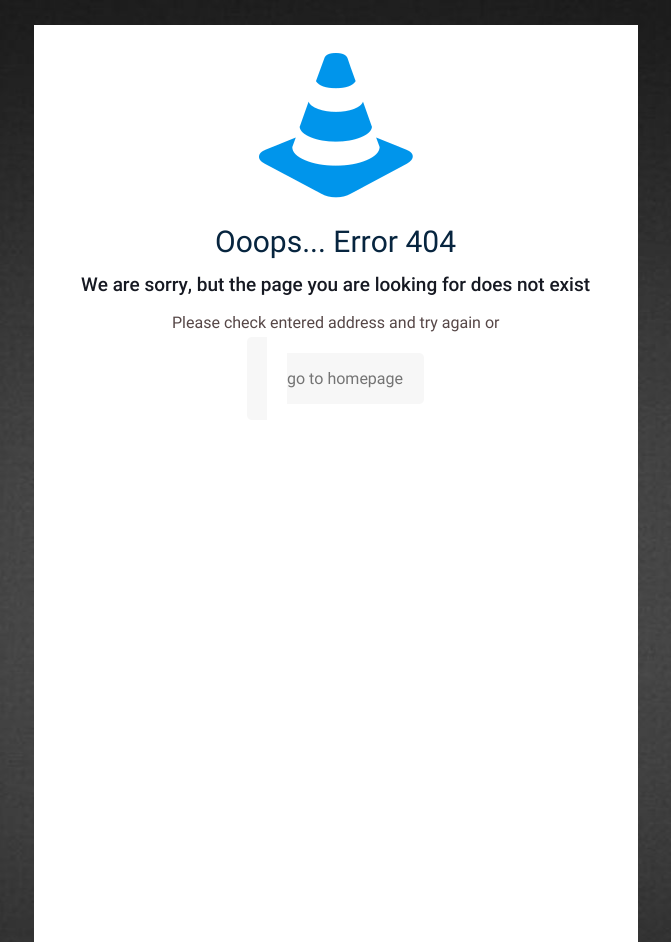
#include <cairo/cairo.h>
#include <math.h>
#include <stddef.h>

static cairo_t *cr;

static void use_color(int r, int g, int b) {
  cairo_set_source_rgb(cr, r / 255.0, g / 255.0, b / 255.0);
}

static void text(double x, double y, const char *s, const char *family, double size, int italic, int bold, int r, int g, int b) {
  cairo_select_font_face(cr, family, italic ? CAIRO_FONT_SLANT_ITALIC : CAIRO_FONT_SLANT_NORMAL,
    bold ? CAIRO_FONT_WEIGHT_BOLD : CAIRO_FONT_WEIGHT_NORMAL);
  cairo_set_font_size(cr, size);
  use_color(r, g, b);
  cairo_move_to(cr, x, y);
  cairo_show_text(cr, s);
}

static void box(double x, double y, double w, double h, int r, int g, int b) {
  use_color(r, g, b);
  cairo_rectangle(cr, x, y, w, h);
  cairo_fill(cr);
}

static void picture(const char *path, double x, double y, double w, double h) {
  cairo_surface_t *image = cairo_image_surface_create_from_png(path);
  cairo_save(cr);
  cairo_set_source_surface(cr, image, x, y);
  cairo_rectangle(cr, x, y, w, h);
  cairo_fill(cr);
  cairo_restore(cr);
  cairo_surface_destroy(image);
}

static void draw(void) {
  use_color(255, 255, 255);
  cairo_paint(cr);
  picture("img_01.png", 0, 0, 671, 942);
  box(34, 25, 604, 917, 255, 255, 255);
  picture("img_02.png", 259, 53, 154, 145);
  use_color(247, 247, 247);
  cairo_new_path(cr);
  cairo_move_to(cr, 252, 337);
  cairo_line_to(cr, 267, 337);
  cairo_line_to(cr, 267, 420);
  cairo_line_to(cr, 252, 420);
  cairo_curve_to(cr, 249, 420, 247, 418, 247, 415);
  cairo_line_to(cr, 247, 342);
  cairo_curve_to(cr, 247, 339, 249, 337, 252, 337);
  cairo_close_path(cr);
  cairo_fill(cr);
  cairo_new_path(cr);
  cairo_move_to(cr, 287, 353);
  cairo_line_to(cr, 419, 353);
  cairo_curve_to(cr, 422, 353, 424, 355, 424, 358);
  cairo_line_to(cr, 424, 399);
  cairo_curve_to(cr, 424, 402, 422, 404, 419, 404);
  cairo_line_to(cr, 287, 404);
  cairo_close_path(cr);
  cairo_fill(cr);
  text(215, 252, "Ooops... Error 404", "Roboto", 30, 0, 0, 7, 37, 63);
  text(81, 291, "We are sorry, but the page you are looking for does not exist", "Roboto Medium", 19, 0, 0, 22, 25, 34);
  text(172, 328, "Please check entered address and try again or", "Roboto", 16, 0, 0, 86, 71, 71);
  text(287, 384, "go to homepage", "Roboto", 16, 0, 0, 116, 116, 116);
}

int main(void) {
  cairo_surface_t *surface = cairo_image_surface_create(CAIRO_FORMAT_RGB24, 671, 942);
  cr = cairo_create(surface);
  cairo_font_options_t *options = cairo_font_options_create();
  cairo_font_options_set_hint_metrics(options, CAIRO_HINT_METRICS_OFF);
  cairo_font_options_set_hint_style(options, CAIRO_HINT_STYLE_NONE);
  cairo_set_font_options(cr, options);
  cairo_set_miter_limit(cr, 4);
  draw();
  cairo_surface_write_to_png(surface, "out.png");
  cairo_font_options_destroy(options);
  cairo_destroy(cr);
  cairo_surface_destroy(surface);
  return 0;
}
